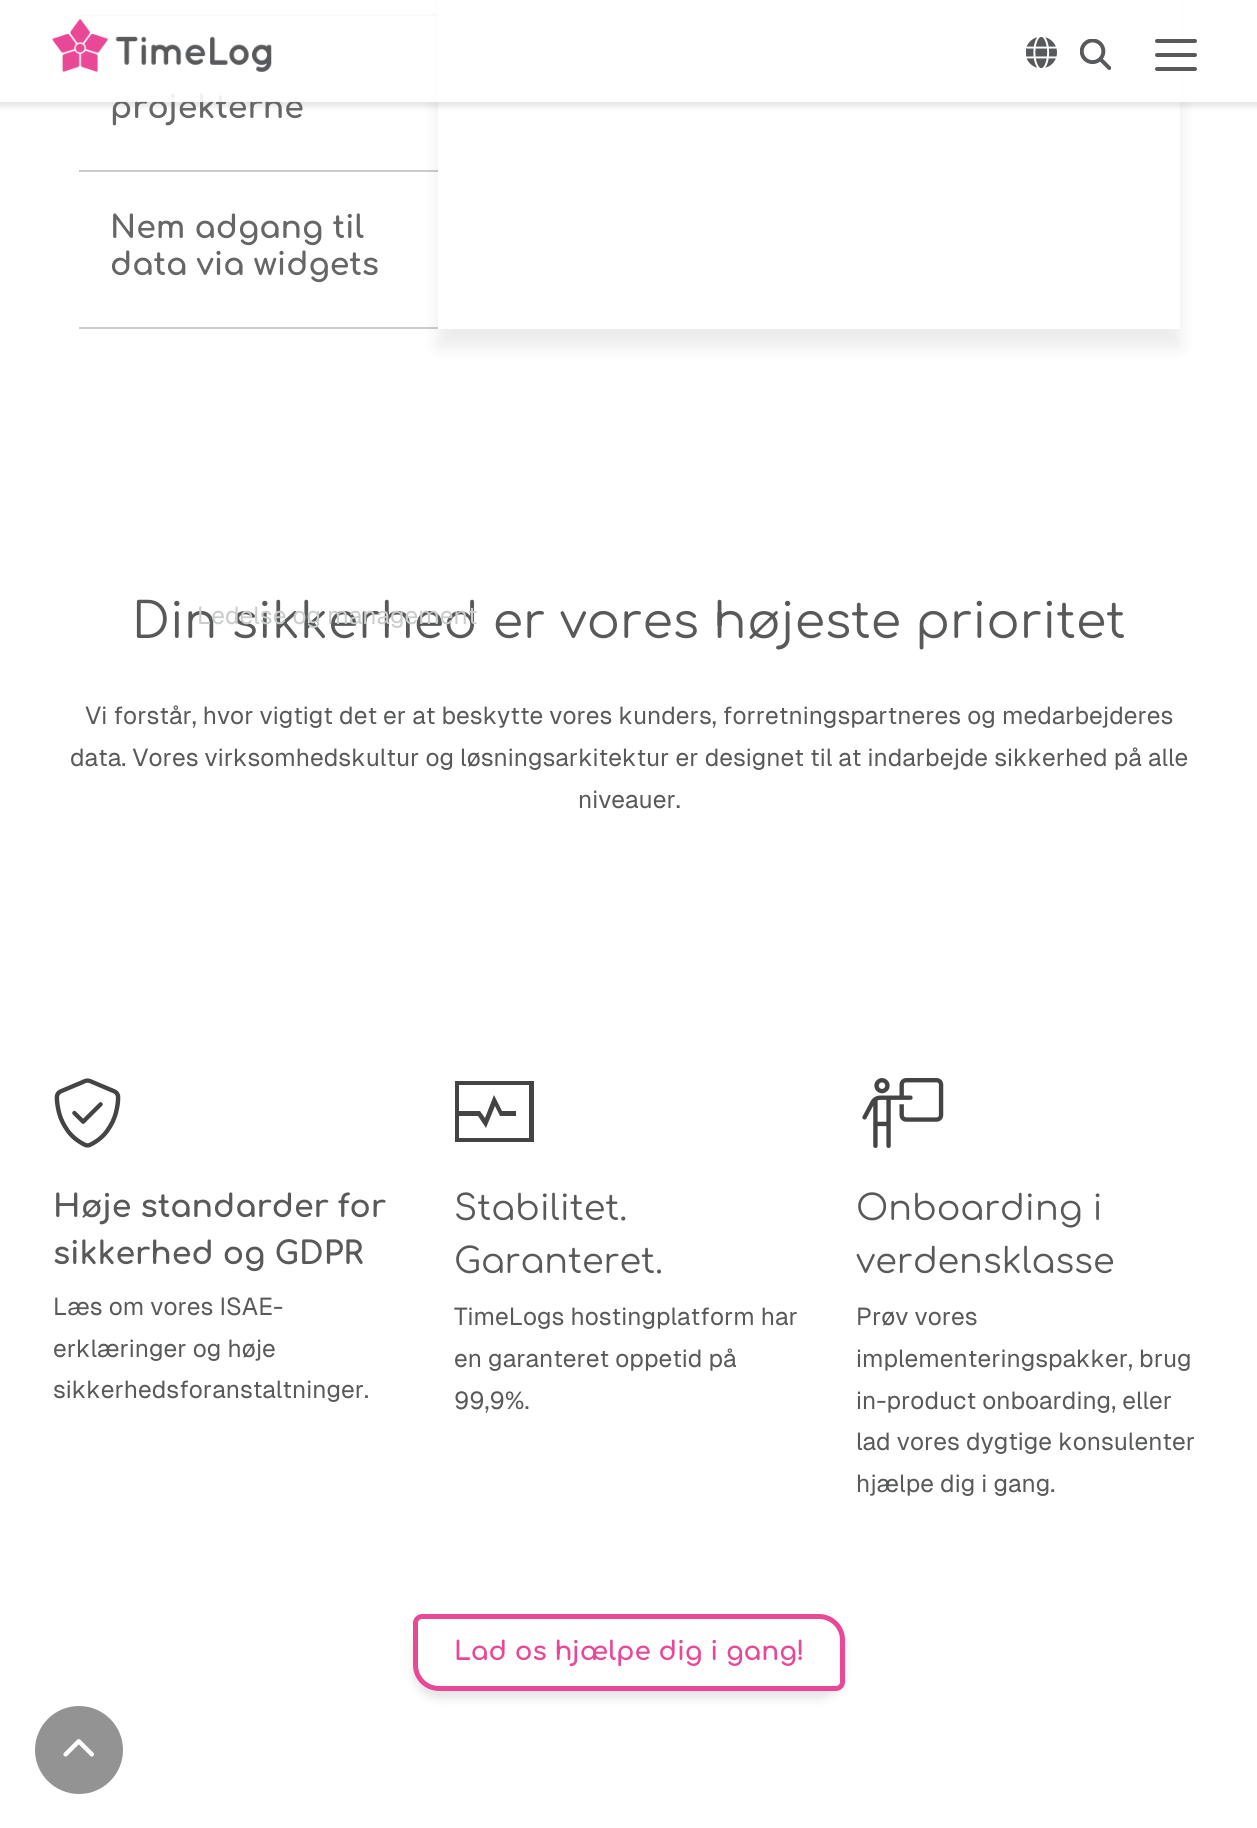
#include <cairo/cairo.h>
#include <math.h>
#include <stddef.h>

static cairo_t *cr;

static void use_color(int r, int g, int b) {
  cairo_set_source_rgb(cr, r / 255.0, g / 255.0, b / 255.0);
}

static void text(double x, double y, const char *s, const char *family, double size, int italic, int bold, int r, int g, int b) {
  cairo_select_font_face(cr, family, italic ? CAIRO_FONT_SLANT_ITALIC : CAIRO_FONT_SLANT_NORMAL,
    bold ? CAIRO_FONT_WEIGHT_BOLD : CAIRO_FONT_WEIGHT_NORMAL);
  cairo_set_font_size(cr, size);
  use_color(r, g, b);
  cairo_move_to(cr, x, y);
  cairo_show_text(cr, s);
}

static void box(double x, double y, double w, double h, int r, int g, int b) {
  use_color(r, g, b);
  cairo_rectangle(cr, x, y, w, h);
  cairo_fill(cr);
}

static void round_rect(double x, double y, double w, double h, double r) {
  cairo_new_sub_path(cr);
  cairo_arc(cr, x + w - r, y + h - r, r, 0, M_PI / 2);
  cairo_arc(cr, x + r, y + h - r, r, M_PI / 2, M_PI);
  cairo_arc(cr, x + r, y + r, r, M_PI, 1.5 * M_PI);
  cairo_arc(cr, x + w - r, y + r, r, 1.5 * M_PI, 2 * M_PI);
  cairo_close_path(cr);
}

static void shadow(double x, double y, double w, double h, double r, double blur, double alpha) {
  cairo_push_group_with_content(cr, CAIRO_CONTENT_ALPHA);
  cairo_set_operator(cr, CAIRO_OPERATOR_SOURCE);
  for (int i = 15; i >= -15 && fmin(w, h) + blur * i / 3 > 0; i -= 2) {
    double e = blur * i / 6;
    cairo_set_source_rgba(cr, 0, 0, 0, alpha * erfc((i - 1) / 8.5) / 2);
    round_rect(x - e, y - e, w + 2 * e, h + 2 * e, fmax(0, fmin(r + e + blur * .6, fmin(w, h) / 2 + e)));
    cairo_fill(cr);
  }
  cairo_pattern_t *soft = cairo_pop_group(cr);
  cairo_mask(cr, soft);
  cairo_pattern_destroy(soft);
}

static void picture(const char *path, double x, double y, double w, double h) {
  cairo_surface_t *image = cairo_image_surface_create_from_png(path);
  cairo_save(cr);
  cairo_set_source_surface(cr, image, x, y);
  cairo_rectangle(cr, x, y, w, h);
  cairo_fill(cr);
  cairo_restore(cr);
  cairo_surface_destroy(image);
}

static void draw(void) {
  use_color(255, 255, 255);
  cairo_paint(cr);
  box(79, 14, 359, 2, 204, 204, 204);
  box(79, 170, 359, 2, 204, 204, 204);
  box(79, 327, 359, 2, 204, 204, 204);
  cairo_save(cr);
  cairo_set_fill_rule(cr, CAIRO_FILL_RULE_EVEN_ODD);
  cairo_new_path(cr);
  cairo_move_to(cr, 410, 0);
  cairo_line_to(cr, 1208, 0);
  cairo_line_to(cr, 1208, 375);
  cairo_line_to(cr, 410, 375);
  cairo_close_path(cr);
  cairo_move_to(cr, 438, -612);
  cairo_line_to(cr, 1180, -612);
  cairo_line_to(cr, 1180, 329);
  cairo_line_to(cr, 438, 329);
  cairo_close_path(cr);
  cairo_clip(cr);
  use_color(0, 0, 0);
  shadow(438, -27, 742, 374, 0, 9, 0.08);
  cairo_restore(cr);
  picture("img_01.png", 54, 1078, 67, 70);
  use_color(68, 68, 68);
  cairo_new_path(cr);
  cairo_move_to(cr, 459, 1085);
  cairo_line_to(cr, 459, 1111);
  cairo_line_to(cr, 459, 1085);
  cairo_line_to(cr, 459, 1111);
  cairo_line_to(cr, 480, 1111);
  cairo_line_to(cr, 485, 1118);
  cairo_line_to(cr, 494, 1095);
  cairo_line_to(cr, 502, 1111);
  cairo_line_to(cr, 516, 1111);
  cairo_line_to(cr, 516, 1116);
  cairo_line_to(cr, 500, 1116);
  cairo_line_to(cr, 495, 1106);
  cairo_line_to(cr, 486, 1128);
  cairo_line_to(cr, 478, 1116);
  cairo_line_to(cr, 459, 1116);
  cairo_line_to(cr, 459, 1138);
  cairo_line_to(cr, 529, 1138);
  cairo_line_to(cr, 529, 1085);
  cairo_close_path(cr);
  cairo_move_to(cr, 455, 1081);
  cairo_line_to(cr, 534, 1081);
  cairo_line_to(cr, 534, 1142);
  cairo_line_to(cr, 455, 1142);
  cairo_close_path(cr);
  cairo_fill(cr);
  picture("img_02.png", 862, 1078, 82, 70);
  cairo_save(cr);
  cairo_set_fill_rule(cr, CAIRO_FILL_RULE_EVEN_ODD);
  cairo_new_path(cr);
  cairo_move_to(cr, 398, 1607);
  cairo_line_to(cr, 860, 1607);
  cairo_line_to(cr, 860, 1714);
  cairo_line_to(cr, 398, 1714);
  cairo_close_path(cr);
  cairo_move_to(cr, 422, 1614);
  cairo_line_to(cr, 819, 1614);
  cairo_curve_to(cr, 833.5, 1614, 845, 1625.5, 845, 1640);
  cairo_line_to(cr, 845, 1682);
  cairo_curve_to(cr, 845, 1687, 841, 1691, 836, 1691);
  cairo_line_to(cr, 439, 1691);
  cairo_curve_to(cr, 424.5, 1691, 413, 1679.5, 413, 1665);
  cairo_line_to(cr, 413, 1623);
  cairo_curve_to(cr, 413, 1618, 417, 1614, 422, 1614);
  cairo_close_path(cr);
  cairo_clip(cr);
  use_color(0, 0, 0);
  shadow(413, 1622, 432, 77, 26, 4.5, 0.1);
  cairo_restore(cr);
  cairo_new_path(cr);
  cairo_move_to(cr, 422, 1616.5);
  cairo_line_to(cr, 819, 1616.5);
  cairo_curve_to(cr, 832, 1616.5, 842.5, 1627, 842.5, 1640);
  cairo_line_to(cr, 842.5, 1682);
  cairo_curve_to(cr, 842.5, 1685.5, 839.5, 1688.5, 836, 1688.5);
  cairo_line_to(cr, 439, 1688.5);
  cairo_curve_to(cr, 426, 1688.5, 415.5, 1678, 415.5, 1665);
  cairo_line_to(cr, 415.5, 1623);
  cairo_curve_to(cr, 415.5, 1619.5, 418.5, 1616.5, 422, 1616.5);
  cairo_close_path(cr);
  use_color(232, 72, 149);
  cairo_set_line_width(cr, 5);
  cairo_stroke(cr);
  cairo_save(cr);
  cairo_set_fill_rule(cr, CAIRO_FILL_RULE_EVEN_ODD);
  cairo_new_path(cr);
  cairo_move_to(cr, 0, 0);
  cairo_line_to(cr, 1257, 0);
  cairo_line_to(cr, 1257, 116);
  cairo_line_to(cr, 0, 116);
  cairo_close_path(cr);
  cairo_move_to(cr, 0, 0);
  cairo_line_to(cr, 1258, 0);
  cairo_line_to(cr, 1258, 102);
  cairo_line_to(cr, 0, 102);
  cairo_close_path(cr);
  cairo_clip(cr);
  use_color(0, 0, 0);
  shadow(-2, 2, 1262, 105, 0, 2.5, 0.1);
  cairo_restore(cr);
  use_color(147, 147, 147);
  cairo_arc(cr, 79, 1750, 44, 0, 2 * M_PI);
  cairo_fill(cr);
  picture("img_06.png", 63, 1739, 31, 18);
  text(110, 118, "projekterne", "Comfortaa", 31.5, 0, 1, 102, 102, 102);
  text(110, 238, "Nem adgang til", "Comfortaa", 31.5, 0, 1, 102, 102, 102);
  text(110, 275, "data via widgets", "Comfortaa", 31.5, 0, 1, 102, 102, 102);
  text(132, 638, "Din sikkerhed er vores højeste prioritet", "Comfortaa", 49, 0, 0, 88, 89, 91);
  text(85, 724, "Vi forstår, hvor vigtigt det er at beskytte vores kunders, forretningspartneres og medarbejderes", "Geist", 24.5, 0, 0, 88, 89, 91);
  text(70, 766, "data. Vores virksomhedskultur og løsningsarkitektur er designet til at indarbejde sikkerhed på alle", "Geist", 24.5, 0, 0, 88, 89, 91);
  text(578, 808, "niveauer.", "Geist", 24.5, 0, 0, 88, 89, 91);
  text(53, 1217, "Høje standarder for", "Comfortaa", 31.5, 0, 1, 88, 89, 91);
  text(53, 1264, "sikkerhed og GDPR", "Comfortaa", 31.5, 0, 1, 88, 89, 91);
  text(53, 1315, "Læs om vores ISAE-", "Geist", 24.5, 0, 0, 88, 89, 91);
  text(53, 1357, "erklæringer og høje", "Geist", 24.5, 0, 0, 88, 89, 91);
  text(53, 1398, "sikkerhedsforanstaltninger.", "Geist", 24.5, 0, 0, 88, 89, 91);
  text(454, 1220, "Stabilitet.", "Comfortaa", 35, 0, 0, 88, 89, 91);
  text(454, 1273, "Garanteret.", "Comfortaa", 35, 0, 0, 88, 89, 91);
  text(454, 1325, "TimeLogs hostingplatform har", "Geist", 24.5, 0, 0, 88, 89, 91);
  text(454, 1367, "en garanteret oppetid på", "Geist", 24.5, 0, 0, 88, 89, 91);
  text(454, 1409, "99,9%.", "Geist", 24.5, 0, 0, 88, 89, 91);
  text(856, 1220, "Onboarding i", "Comfortaa", 35, 0, 0, 88, 89, 91);
  text(856, 1273, "verdensklasse", "Comfortaa", 35, 0, 0, 88, 89, 91);
  text(856, 1325, "Prøv vores", "Geist", 24.5, 0, 0, 88, 89, 91);
  text(856, 1367, "implementeringspakker, brug", "Geist", 24.5, 0, 0, 88, 89, 91);
  text(856, 1409, "in-product onboarding, eller", "Geist", 24.5, 0, 0, 88, 89, 91);
  text(856, 1450, "lad vores dygtige konsulenter", "Geist", 24.5, 0, 0, 88, 89, 91);
  text(856, 1492, "hjælpe dig i gang.", "Geist", 24.5, 0, 0, 88, 89, 91);
  text(454, 1660, "Lad os hjælpe dig i gang!", "Comfortaa", 26.25, 0, 1, 232, 72, 149);
  cairo_set_source_rgba(cr, 1, 1, 1, 0.9);
  cairo_rectangle(cr, 0, 0, 1257, 102);
  cairo_fill(cr);
  picture("img_03.png", 52, 19, 220, 53);
  picture("img_04.png", 1026, 37, 31, 31);
  picture("img_05.png", 1080, 39, 31, 31);
  use_color(88, 89, 91);
  round_rect(1155, 39, 42, 4, 2);
  cairo_fill(cr);
  round_rect(1155, 53, 42, 4, 2);
  cairo_fill(cr);
  round_rect(1155, 67, 42, 4, 2);
  cairo_fill(cr);
  text(197, 624, "Ledelse og management", "Geist", 24.5, 0, 0, 203, 204, 204);
}

int main(void) {
  cairo_surface_t *surface = cairo_image_surface_create(CAIRO_FORMAT_RGB24, 1257, 1828);
  cr = cairo_create(surface);
  cairo_font_options_t *options = cairo_font_options_create();
  cairo_font_options_set_hint_metrics(options, CAIRO_HINT_METRICS_OFF);
  cairo_font_options_set_hint_style(options, CAIRO_HINT_STYLE_NONE);
  cairo_set_font_options(cr, options);
  cairo_set_miter_limit(cr, 4);
  draw();
  cairo_surface_write_to_png(surface, "out.png");
  cairo_font_options_destroy(options);
  cairo_destroy(cr);
  cairo_surface_destroy(surface);
  return 0;
}
